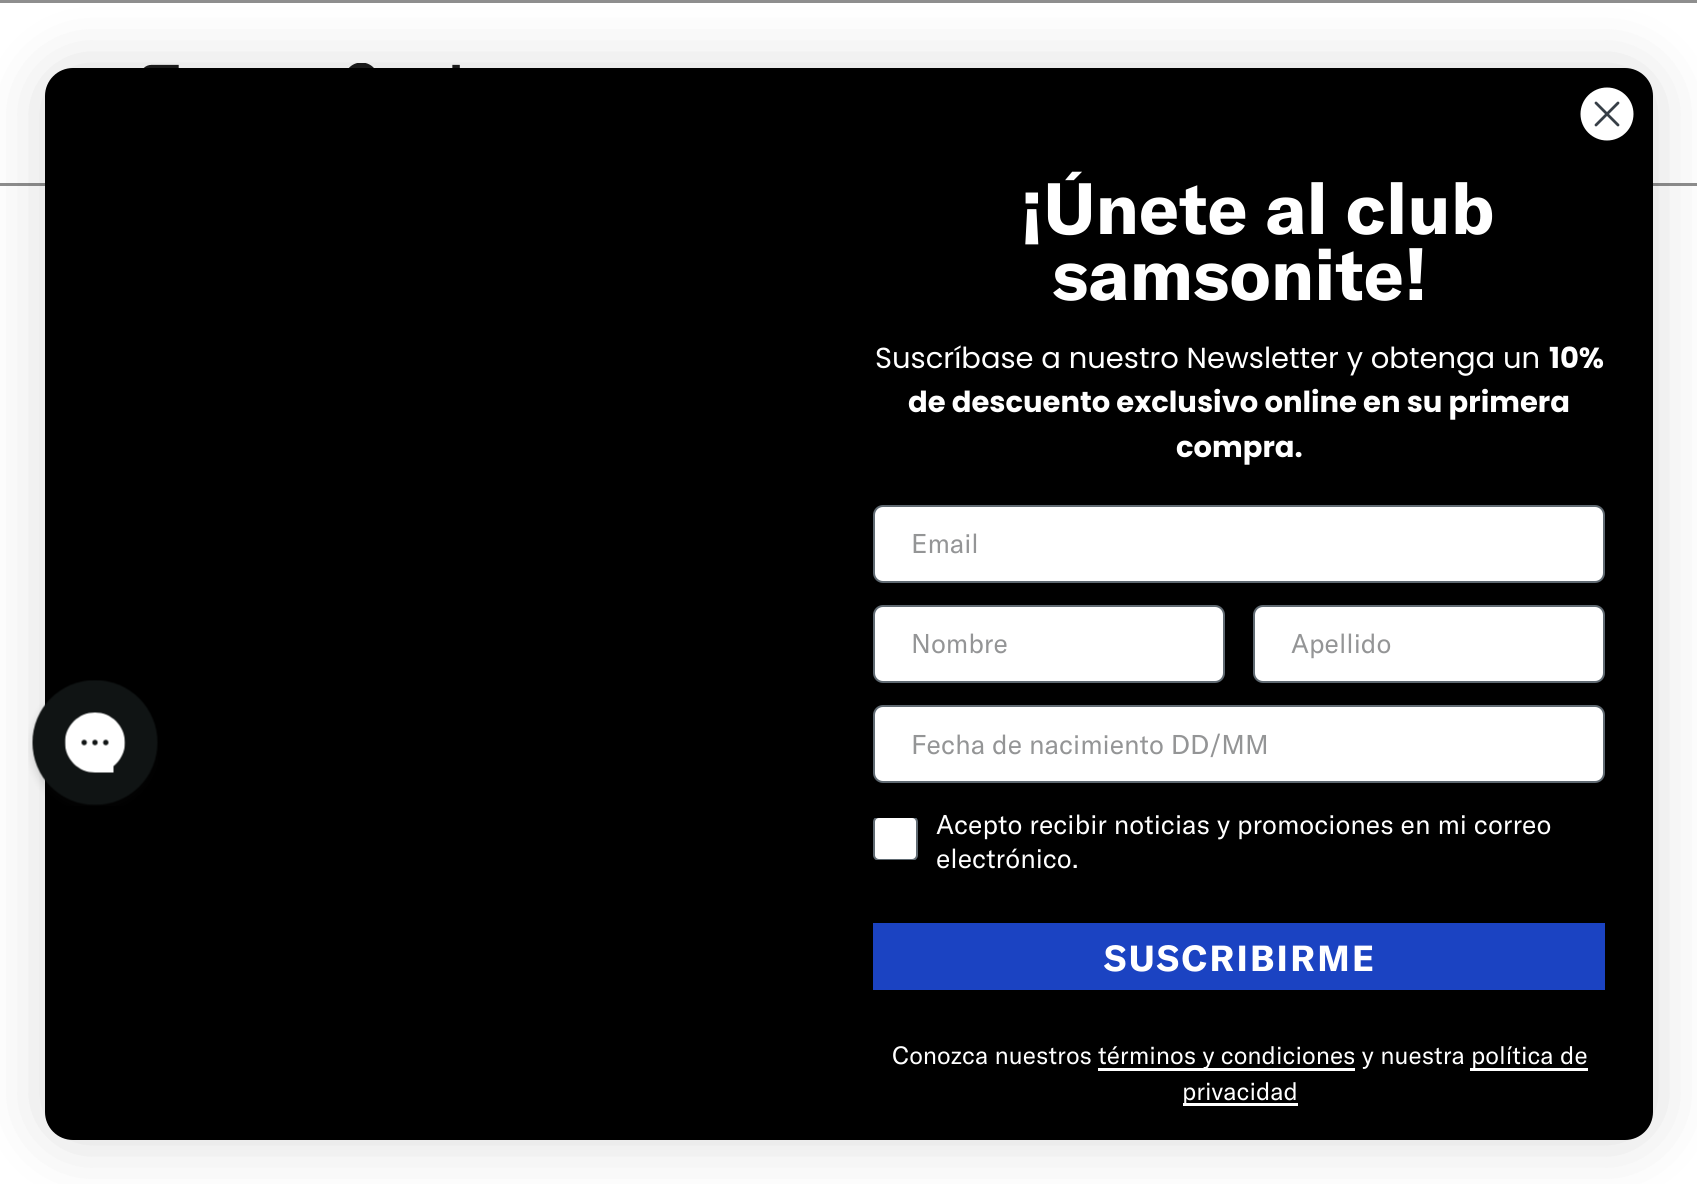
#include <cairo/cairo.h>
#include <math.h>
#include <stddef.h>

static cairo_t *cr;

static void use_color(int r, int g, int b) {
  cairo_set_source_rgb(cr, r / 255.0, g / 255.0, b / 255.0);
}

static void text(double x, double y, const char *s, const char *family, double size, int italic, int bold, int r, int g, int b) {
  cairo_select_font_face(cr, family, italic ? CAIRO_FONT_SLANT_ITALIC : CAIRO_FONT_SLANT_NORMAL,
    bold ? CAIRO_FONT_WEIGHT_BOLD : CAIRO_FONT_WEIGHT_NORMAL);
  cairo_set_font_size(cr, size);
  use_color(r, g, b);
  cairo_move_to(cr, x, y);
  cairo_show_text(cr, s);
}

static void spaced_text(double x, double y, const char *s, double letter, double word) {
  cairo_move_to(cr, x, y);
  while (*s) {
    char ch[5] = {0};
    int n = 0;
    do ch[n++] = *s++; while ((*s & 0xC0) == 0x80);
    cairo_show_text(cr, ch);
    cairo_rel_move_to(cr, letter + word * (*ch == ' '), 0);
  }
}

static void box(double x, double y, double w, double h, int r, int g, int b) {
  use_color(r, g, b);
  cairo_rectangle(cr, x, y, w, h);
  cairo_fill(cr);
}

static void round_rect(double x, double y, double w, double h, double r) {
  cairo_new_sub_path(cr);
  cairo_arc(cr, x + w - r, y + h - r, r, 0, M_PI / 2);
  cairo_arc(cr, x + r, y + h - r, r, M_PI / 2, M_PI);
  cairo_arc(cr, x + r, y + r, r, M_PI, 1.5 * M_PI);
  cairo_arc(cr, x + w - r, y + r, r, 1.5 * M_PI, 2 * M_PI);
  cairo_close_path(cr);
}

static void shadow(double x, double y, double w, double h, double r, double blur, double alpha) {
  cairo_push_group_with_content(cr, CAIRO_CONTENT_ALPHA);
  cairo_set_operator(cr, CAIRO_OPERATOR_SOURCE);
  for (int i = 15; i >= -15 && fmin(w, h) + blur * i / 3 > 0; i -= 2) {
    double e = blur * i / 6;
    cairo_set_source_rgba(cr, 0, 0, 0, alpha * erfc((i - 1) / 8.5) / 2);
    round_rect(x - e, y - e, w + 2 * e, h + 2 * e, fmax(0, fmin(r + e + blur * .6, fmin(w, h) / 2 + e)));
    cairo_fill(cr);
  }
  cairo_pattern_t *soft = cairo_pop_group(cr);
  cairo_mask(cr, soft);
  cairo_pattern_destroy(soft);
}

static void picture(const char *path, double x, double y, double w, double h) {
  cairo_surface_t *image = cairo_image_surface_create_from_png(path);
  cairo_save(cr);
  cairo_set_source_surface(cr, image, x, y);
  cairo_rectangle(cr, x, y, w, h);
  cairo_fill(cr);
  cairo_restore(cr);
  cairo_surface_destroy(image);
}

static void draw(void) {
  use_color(255, 255, 255);
  cairo_paint(cr);
  box(0, 0, 1697, 3, 142, 142, 142);
  box(0, 183, 1697, 3, 142, 142, 142);
  picture("img_01.png", 143, 63, 317, 5);
  use_color(0, 0, 0);
  shadow(45, 68, 1608, 1072, 28, 33.5, 0.15);
  use_color(0, 0, 0);
  round_rect(45, 68, 1608, 1072, 28);
  cairo_fill(cr);
  picture("img_02.png", 28, 680, 130, 126);
  use_color(255, 255, 255);
  cairo_arc(cr, 1607, 114, 26.5, 0, 2 * M_PI);
  cairo_fill(cr);
  cairo_new_path(cr);
  cairo_move_to(cr, 1596, 103);
  cairo_line_to(cr, 1618, 125);
  cairo_move_to(cr, 1596, 125);
  cairo_line_to(cr, 1618, 103);
  cairo_close_path(cr);
  use_color(55, 63, 71);
  cairo_set_line_width(cr, 2.8);
  cairo_set_line_cap(cr, CAIRO_LINE_CAP_ROUND);
  cairo_set_line_join(cr, CAIRO_LINE_JOIN_ROUND);
  cairo_stroke(cr);
  use_color(255, 255, 255);
  round_rect(874, 506, 730, 76, 9);
  cairo_fill_preserve(cr);
  use_color(96, 106, 114);
  cairo_set_line_width(cr, 2);
  cairo_set_line_cap(cr, CAIRO_LINE_CAP_BUTT);
  cairo_set_line_join(cr, CAIRO_LINE_JOIN_MITER);
  cairo_stroke(cr);
  use_color(255, 255, 255);
  round_rect(874, 606, 350, 76, 9);
  cairo_fill_preserve(cr);
  use_color(96, 106, 114);
  cairo_stroke(cr);
  use_color(255, 255, 255);
  round_rect(1254, 606, 350, 76, 9);
  cairo_fill_preserve(cr);
  use_color(96, 106, 114);
  cairo_stroke(cr);
  use_color(255, 255, 255);
  round_rect(874, 706, 730, 76, 9);
  cairo_fill_preserve(cr);
  use_color(96, 106, 114);
  cairo_stroke(cr);
  cairo_save(cr);
  cairo_rectangle(cr, 873, 818, 45, 42);
  cairo_clip(cr);
  use_color(255, 255, 255);
  round_rect(874, 817, 43, 43, 5);
  cairo_fill_preserve(cr);
  use_color(96, 106, 114);
  cairo_stroke(cr);
  cairo_restore(cr);
  box(873, 923, 732, 67, 27, 67, 194);
  box(1098, 1068, 257, 3, 255, 255, 255);
  box(1470, 1068, 118, 3, 255, 255, 255);
  box(1183, 1103, 115, 3, 255, 255, 255);
  text(1020, 234, "¡Únete al club", "GT America", 71.5, 0, 1, 255, 255, 255);
  text(1052, 300, "samsonite!", "GT America", 71.5, 0, 1, 255, 255, 255);
  text(875, 368, "Suscríbase a nuestro Newsletter y obtenga un", "Poppins", 29, 0, 0, 255, 255, 255);
  text(1549, 368, "10%", "Poppins", 29, 0, 1, 255, 255, 255);
  text(908, 412, "de descuento exclusivo online en su primera", "Poppins", 29, 0, 1, 255, 255, 255);
  text(1176, 457, "compra.", "Poppins", 29, 0, 1, 255, 255, 255);
  text(911, 553, "Email", "GT America", 26.8, 0, 0, 148, 149, 150);
  text(911, 653, "Nombre", "GT America", 26.8, 0, 0, 148, 149, 150);
  text(1291, 653, "Apellido", "GT America", 26.8, 0, 0, 148, 149, 150);
  text(911, 754, "Fecha de nacimiento DD/MM", "GT America", 26.8, 0, 0, 148, 149, 150);
  text(936, 834, "Acepto recibir noticias y promociones en mi correo", "GT America", 26.8, 0, 0, 255, 255, 255);
  text(936, 868, "electrónico.", "GT America", 26.8, 0, 0, 255, 255, 255);
  cairo_select_font_face(cr, "GT America", CAIRO_FONT_SLANT_NORMAL, CAIRO_FONT_WEIGHT_BOLD);
  cairo_set_font_size(cr, 35.75);
  spaced_text(1104, 971, "SUSCRIBIRME", 2.25, 0);
  text(892, 1064, "Conozca nuestros", "GT America", 24.6, 0, 0, 255, 255, 255);
  text(1098, 1064, "términos y condiciones y nuestra", "GT America", 24.6, 0, 0, 255, 255, 255);
  text(1471, 1064, "política de", "GT America", 24.6, 0, 0, 255, 255, 255);
  text(1182, 1100, "privacidad", "GT America", 24.6, 0, 0, 255, 255, 255);
}

int main(void) {
  cairo_surface_t *surface = cairo_image_surface_create(CAIRO_FORMAT_RGB24, 1697, 1184);
  cr = cairo_create(surface);
  cairo_font_options_t *options = cairo_font_options_create();
  cairo_font_options_set_hint_metrics(options, CAIRO_HINT_METRICS_OFF);
  cairo_font_options_set_hint_style(options, CAIRO_HINT_STYLE_NONE);
  cairo_set_font_options(cr, options);
  cairo_set_miter_limit(cr, 4);
  draw();
  cairo_surface_write_to_png(surface, "out.png");
  cairo_font_options_destroy(options);
  cairo_destroy(cr);
  cairo_surface_destroy(surface);
  return 0;
}
